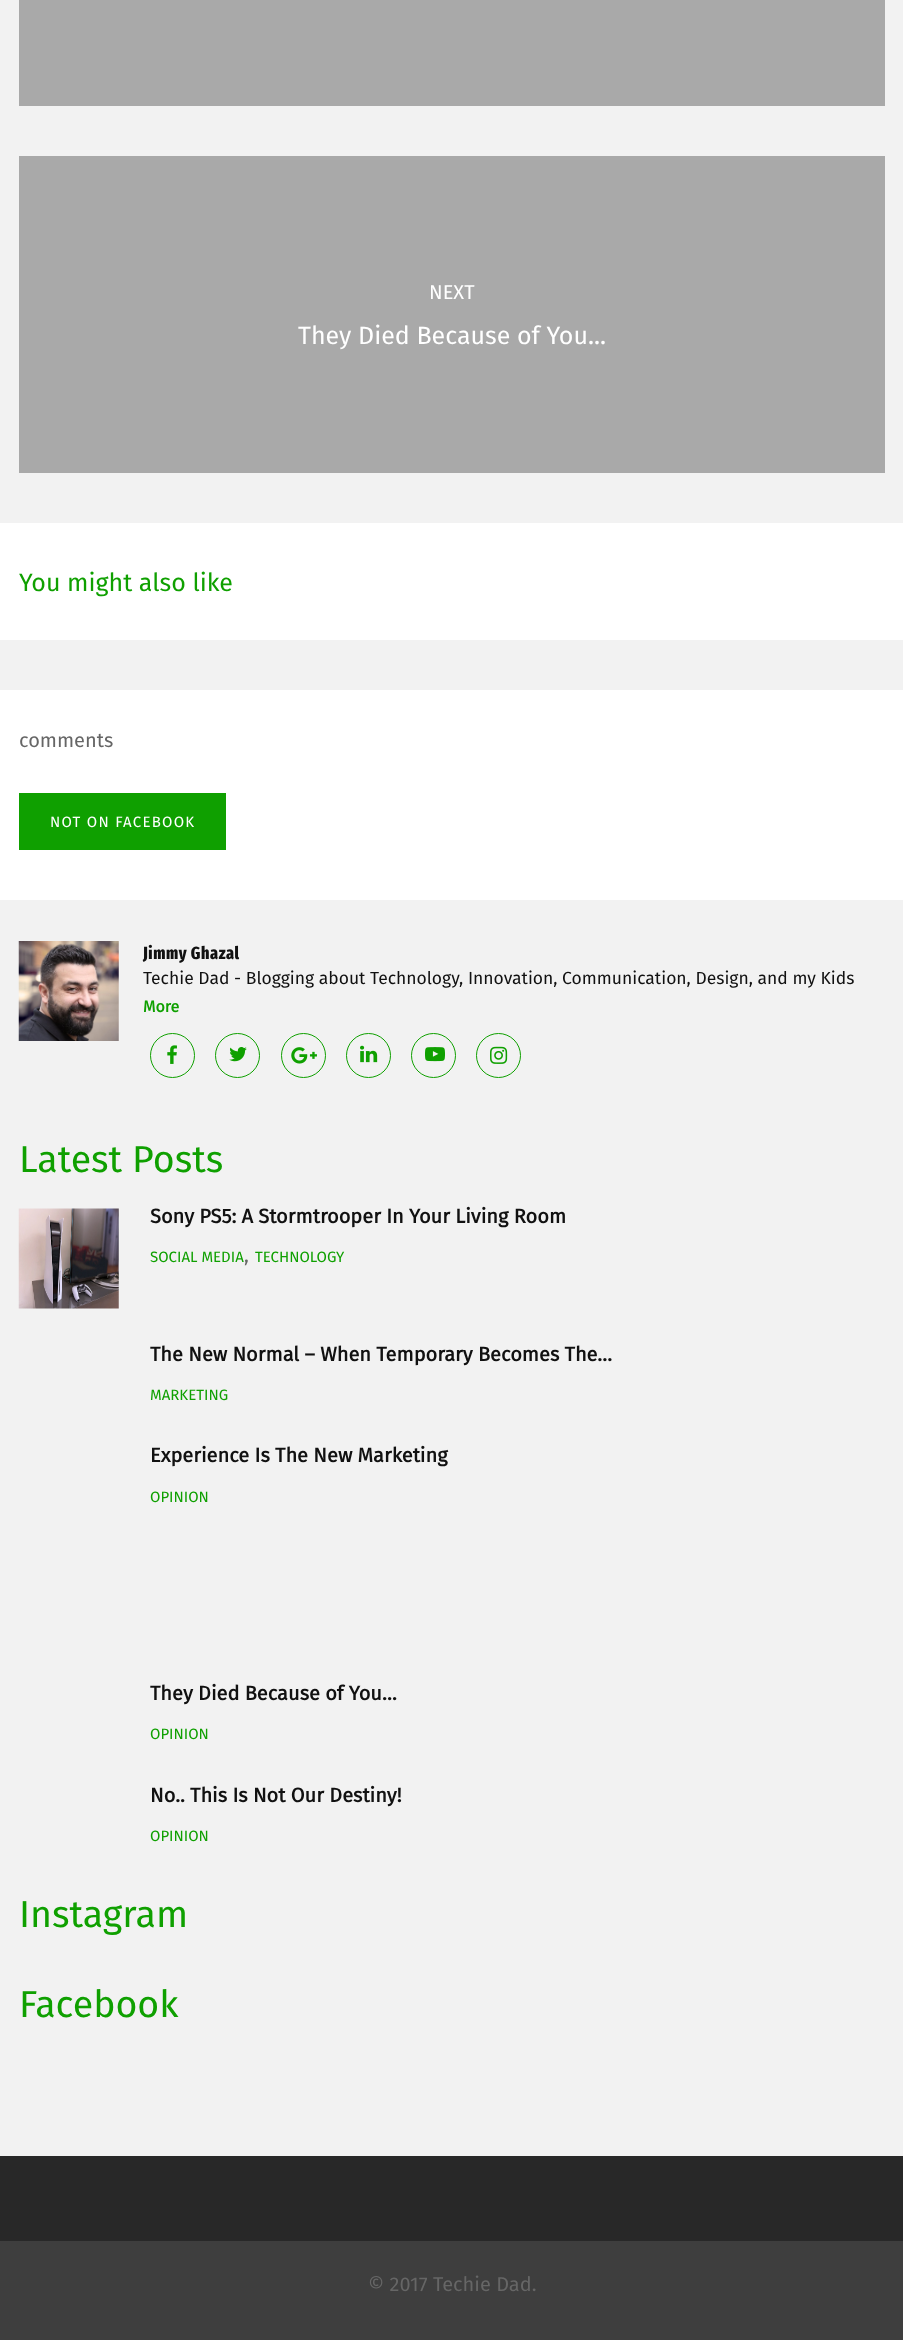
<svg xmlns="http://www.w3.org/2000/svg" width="903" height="2340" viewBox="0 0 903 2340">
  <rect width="100%" height="100%" fill="#f2f2f2"/>
  <rect x="19" y="0" width="866" height="106" fill="#a9a9a9"/>
  <rect x="19" y="156" width="866" height="317" fill="#a9a9a9"/>
  <text x="429" y="299" font-family="Fira Sans" font-size="20" fill="#ffffff">NEXT</text>
  <text x="298" y="344" font-family="Fira Sans" font-size="25" fill="#ffffff">They Died Because of You...</text>
  <rect x="0" y="523" width="903" height="117" fill="#ffffff"/>
  <text x="19" y="591" font-family="Fira Sans" font-size="25" fill="#0fa000">You might also like</text>
  <rect x="0" y="690" width="903" height="210" fill="#ffffff"/>
  <text x="19" y="747" font-family="Fira Sans" font-size="20" fill="#666666">comments</text>
  <rect x="19" y="793" width="207" height="57" fill="#0fa000"/>
  <text x="50" y="827" font-family="Fira Sans" font-size="15" letter-spacing="1.25" fill="#ffffff">NOT ON FACEBOOK</text>
  <image x="18" y="941" width="101" height="100" href="img1.png"/>
  <text x="143" y="959" font-family="Fira Sans Extra Condensed" font-size="17.5" font-weight="800" letter-spacing="0.6" fill="#111111">Jimmy Ghazal</text>
  <text x="143" y="984" font-family="Fira Sans" font-size="17.5" fill="#111111">Techie Dad - Blogging about Technology, Innovation, Communication, Design, and my Kids</text>
  <text x="143" y="1012" font-family="Fira Sans" font-size="16" font-weight="bold" fill="#0fa000">More</text>
  <circle cx="172.5" cy="1055.5" r="22" fill="none" stroke="#0fa000"/>
  <image x="167" y="1045" width="10" height="19" href="img2.png"/>
  <circle cx="237.5" cy="1055.5" r="22" fill="none" stroke="#0fa000"/>
  <image x="229" y="1047" width="18" height="15" href="img3.png"/>
  <circle cx="303.5" cy="1055.5" r="22" fill="none" stroke="#0fa000"/>
  <image x="291" y="1047" width="26" height="17" href="img4.png"/>
  <circle cx="368.5" cy="1055.5" r="22" fill="none" stroke="#0fa000"/>
  <image x="360" y="1045" width="18" height="18" href="img5.png"/>
  <circle cx="433.5" cy="1055.5" r="22" fill="none" stroke="#0fa000"/>
  <image x="425" y="1047" width="20" height="15" href="img6.png"/>
  <circle cx="498.5" cy="1055.5" r="22" fill="none" stroke="#0fa000"/>
  <image x="490" y="1046" width="18" height="18" href="img7.png"/>
  <text x="19" y="1172" font-family="Fira Sans" font-size="37.5" fill="#0fa000">Latest Posts</text>
  <image x="18" y="1208" width="101" height="101" href="img8.png"/>
  <text x="150" y="1223" font-family="Fira Sans" font-size="20" font-weight="bold" fill="#111111">Sony PS5: A Stormtrooper In Your Living Room</text>
  <text x="150" y="1262" font-family="Fira Sans" font-size="15" fill="#0fa000">SOCIAL MEDIA</text>
  <text x="244" y="1262" font-family="Fira Sans" font-size="20" fill="#666666">,</text>
  <text x="255" y="1262" font-family="Fira Sans" font-size="15" fill="#0fa000">TECHNOLOGY</text>
  <text x="150" y="1361" font-family="Fira Sans" font-size="20" font-weight="bold" fill="#111111">The New Normal – When Temporary Becomes The…</text>
  <text x="150" y="1400" font-family="Fira Sans" font-size="15" fill="#0fa000">MARKETING</text>
  <text x="150" y="1462" font-family="Fira Sans" font-size="20" font-weight="bold" fill="#111111">Experience Is The New Marketing</text>
  <text x="150" y="1502" font-family="Fira Sans" font-size="15" fill="#0fa000">OPINION</text>
  <text x="150" y="1700" font-family="Fira Sans" font-size="20" font-weight="bold" fill="#111111">They Died Because of You…</text>
  <text x="150" y="1739" font-family="Fira Sans" font-size="15" fill="#0fa000">OPINION</text>
  <text x="150" y="1802" font-family="Fira Sans" font-size="20" font-weight="bold" fill="#111111">No.. This Is Not Our Destiny!</text>
  <text x="150" y="1841" font-family="Fira Sans" font-size="15" fill="#0fa000">OPINION</text>
  <text x="19" y="1927" font-family="Fira Sans" font-size="37.5" fill="#0fa000">Instagram</text>
  <text x="19" y="2017" font-family="Fira Sans" font-size="37.5" fill="#0fa000">Facebook</text>
  <rect x="0" y="2156" width="903" height="85" fill="#282828"/>
  <rect x="0" y="2241" width="903" height="99" fill="#3e3e3e"/>
  <text x="368" y="2291" font-family="Fira Sans" font-size="20" fill="#666666">© 2017 Techie Dad.</text>
</svg>
